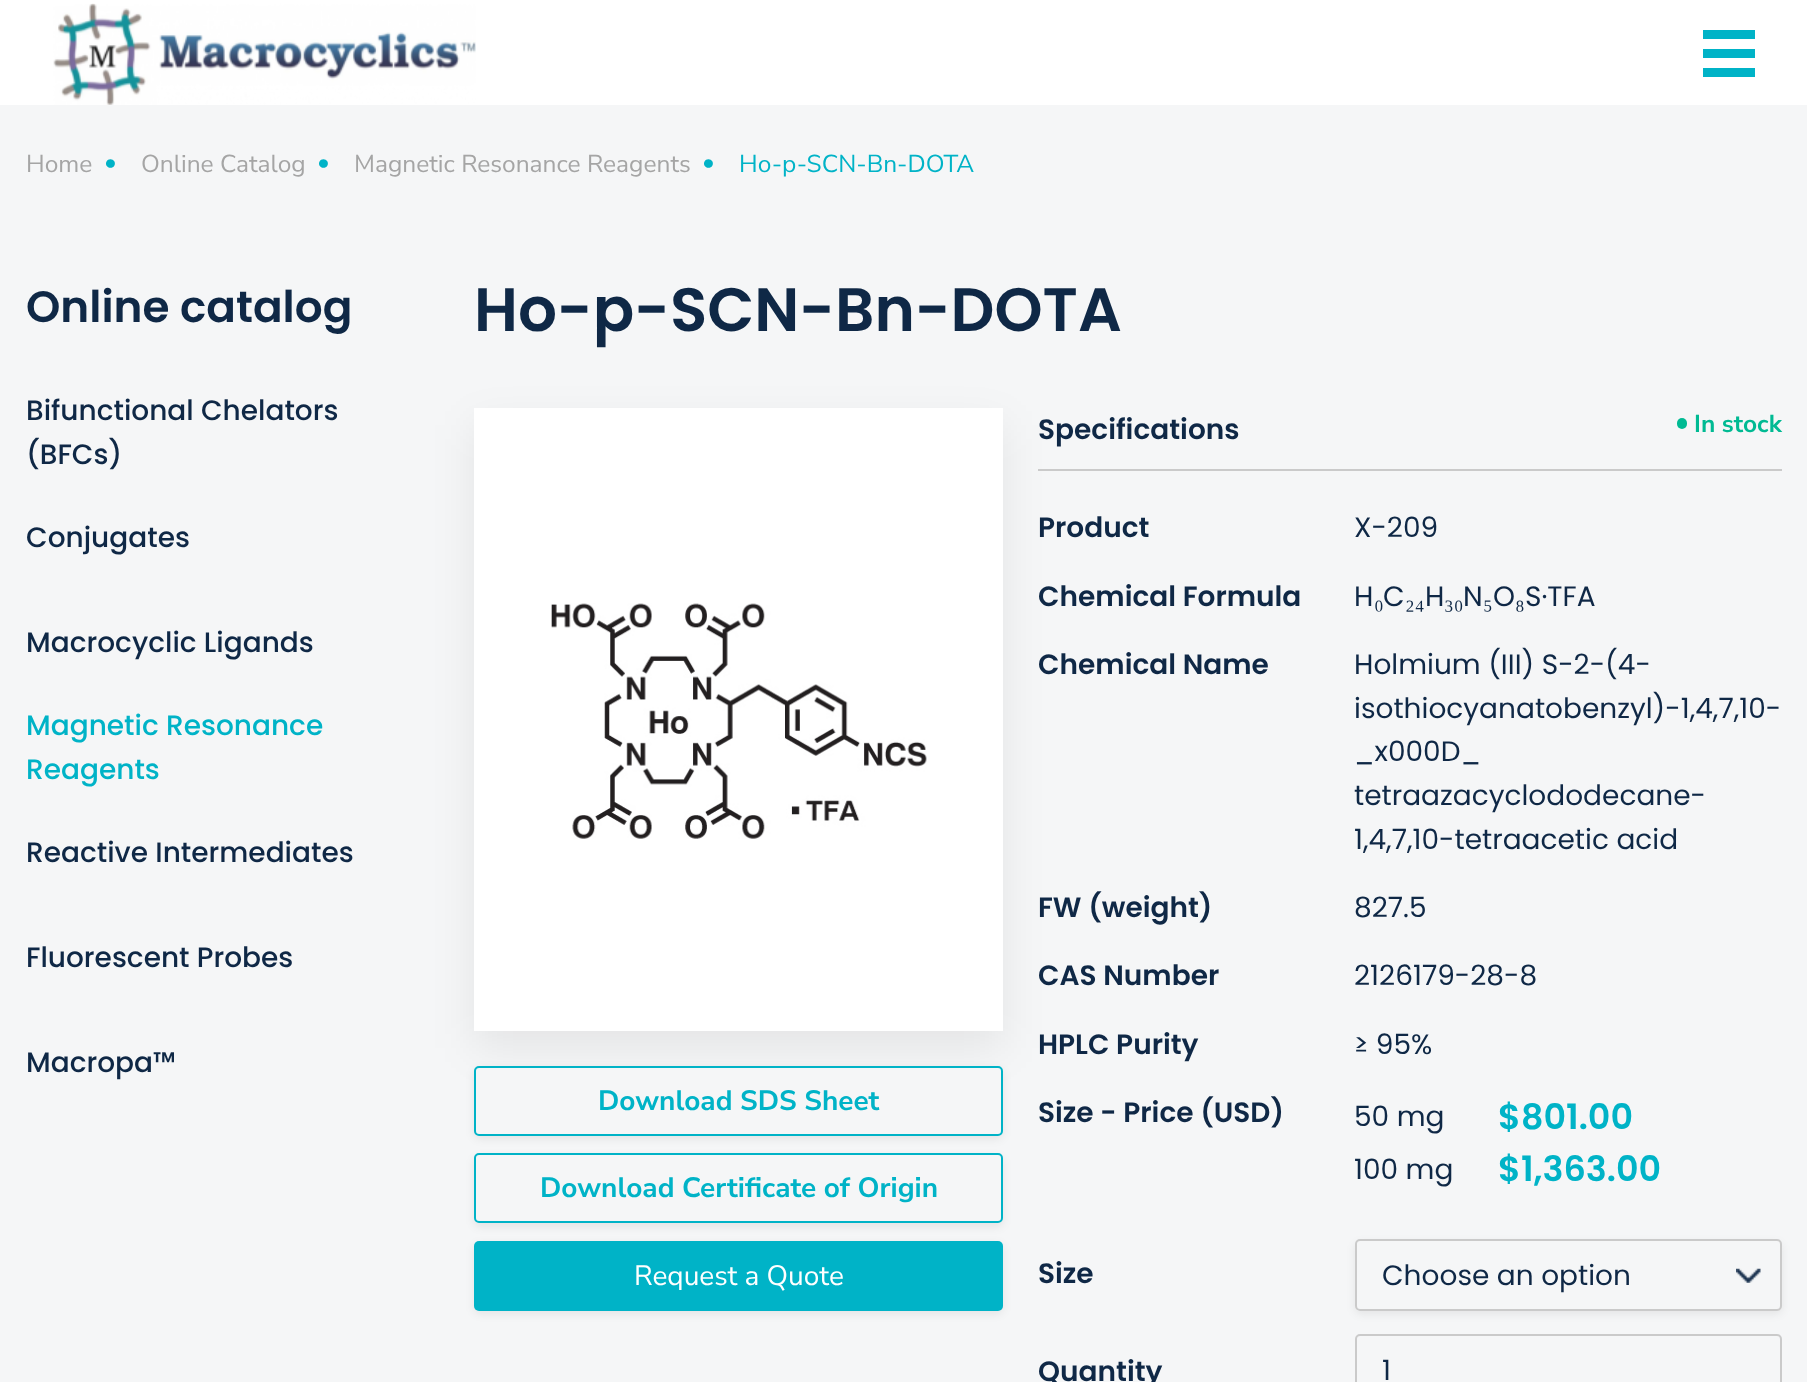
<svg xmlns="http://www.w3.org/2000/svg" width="1807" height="1382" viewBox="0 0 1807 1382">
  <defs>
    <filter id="blur1" x="-50%" y="-200%" width="200%" height="500%"><feGaussianBlur stdDeviation="22"/></filter>
    <filter id="blur2" x="-50%" y="-200%" width="200%" height="500%"><feGaussianBlur stdDeviation="4.5"/></filter>
    <clipPath id="clip1"><path d="M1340 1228H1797V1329H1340ZM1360 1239H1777C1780 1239 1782 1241 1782 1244V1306C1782 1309 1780 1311 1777 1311H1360C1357 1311 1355 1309 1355 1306V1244C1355 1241 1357 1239 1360 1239Z" clip-rule="evenodd"/></clipPath>
  </defs>
  <rect width="100%" height="100%" fill="#ffffff"/>
  <image x="53" y="3" width="423" height="102" href="img1.png"/>
  <rect x="1703" y="30" width="52" height="9" fill="#00b3c7"/>
  <rect x="1703" y="49" width="52" height="9" fill="#00b3c7"/>
  <rect x="1703" y="68" width="52" height="9" fill="#00b3c7"/>
  <rect x="0" y="105" width="1807" height="1277" fill="#f5f6f7"/>
  <text x="26" y="172" font-family="Nunito Sans" font-size="24.5" fill="#a5a5a5">Home</text>
  <text x="104" y="170" font-family="Nunito Sans" font-size="24.5" fill="#00b3c7">•</text>
  <text x="141" y="172" font-family="Nunito Sans" font-size="24.5" fill="#a5a5a5">Online Catalog</text>
  <text x="317" y="170" font-family="Nunito Sans" font-size="24.5" fill="#00b3c7">•</text>
  <text x="354" y="172" font-family="Nunito Sans" font-size="24.5" fill="#a5a5a5">Magnetic Resonance Reagents</text>
  <text x="702" y="170" font-family="Nunito Sans" font-size="24.5" fill="#00b3c7">•</text>
  <text x="739" y="172" font-family="Nunito Sans" font-size="24.5" fill="#00b3c7">Ho-p-SCN-Bn-DOTA</text>
  <text x="26" y="322" font-family="Poppins" font-size="43.75" font-weight="600" fill="#0f2846">Online catalog</text>
  <text x="26" y="420" font-family="Poppins" font-size="28" font-weight="500" fill="#0f2846">Bifunctional Chelators</text>
  <text x="26" y="464" font-family="Poppins" font-size="28" font-weight="500" fill="#0f2846">(BFCs)</text>
  <text x="26" y="547" font-family="Poppins" font-size="28" font-weight="500" fill="#0f2846">Conjugates</text>
  <text x="26" y="652" font-family="Poppins" font-size="28" font-weight="500" fill="#0f2846">Macrocyclic Ligands</text>
  <text x="26" y="735" font-family="Poppins" font-size="28" font-weight="500" fill="#00b3c7">Magnetic Resonance</text>
  <text x="26" y="779" font-family="Poppins" font-size="28" font-weight="500" fill="#00b3c7">Reagents</text>
  <text x="26" y="862" font-family="Poppins" font-size="28" font-weight="500" fill="#0f2846">Reactive Intermediates</text>
  <text x="26" y="967" font-family="Poppins" font-size="28" font-weight="500" fill="#0f2846">Fluorescent Probes</text>
  <text x="26" y="1072" font-family="Poppins" font-size="28" font-weight="500" fill="#0f2846">Macropa™</text>
  <text x="474" y="331" font-family="Poppins" font-size="61.25" font-weight="600" fill="#0f2846">Ho-p-SCN-Bn-DOTA</text>
  <rect x="474" y="425" width="529" height="623" fill="#000000" fill-opacity="0.07" filter="url(#blur1)"/>
  <rect x="474" y="408" width="529" height="623" fill="#ffffff"/>
  <image x="551" y="603" width="376" height="236" href="img2.png"/>
  <rect x="474" y="1069" width="529" height="70" rx="5" fill="#000000" fill-opacity="0.07" filter="url(#blur2)"/>
  <rect x="475" y="1067" width="527" height="68" rx="4" fill="#f5f6f7" stroke="#00b3c7" stroke-width="2"/>
  <text x="598" y="1110" font-family="Nunito Sans" font-size="28" font-weight="bold" fill="#00b3c7">Download SDS Sheet</text>
  <rect x="474" y="1157" width="529" height="70" rx="5" fill="#000000" fill-opacity="0.07" filter="url(#blur2)"/>
  <rect x="475" y="1154" width="527" height="68" rx="4" fill="#f5f6f7" stroke="#00b3c7" stroke-width="2"/>
  <text x="540" y="1197" font-family="Nunito Sans" font-size="28" font-weight="bold" fill="#00b3c7">Download Certificate of Origin</text>
  <rect x="474" y="1244" width="529" height="70" rx="5" fill="#000000" fill-opacity="0.07" filter="url(#blur2)"/>
  <rect x="474" y="1241" width="529" height="70" rx="5" fill="#00b3c7"/>
  <text x="634" y="1285" font-family="Nunito Sans" font-size="28" fill="#ffffff">Request a Quote</text>
  <text x="1038" y="439" font-family="Poppins" font-size="28" font-weight="600" fill="#0f2846">Specifications</text>
  <rect x="1038" y="469" width="744" height="2" fill="#cacaca"/>
  <rect x="1677" y="418" width="10" height="11" rx="5" fill="#00ba93"/>
  <text x="1694" y="432" font-family="Nunito Sans" font-size="24.5" font-weight="bold" fill="#00ba93">In stock</text>
  <text x="1038" y="537" font-family="Poppins" font-size="28" font-weight="600" fill="#0f2846">Product</text>
  <text x="1354" y="537" font-family="Poppins" font-size="28" fill="#0f2846">X-209</text>
  <text x="1038" y="606" font-family="Poppins" font-size="28" font-weight="600" fill="#0f2846">Chemical Formula</text>
  <text x="1354" y="606" font-family="Poppins" font-size="28" fill="#0f2846">H</text>
  <text x="1374" y="606" font-family="Liberation Serif" font-size="28" fill="#0f2846">₀</text>
  <text x="1383" y="606" font-family="Poppins" font-size="28" fill="#0f2846">C</text>
  <text x="1405" y="606" font-family="Liberation Serif" font-size="28" fill="#0f2846">₂₄</text>
  <text x="1425" y="606" font-family="Poppins" font-size="28" fill="#0f2846">H</text>
  <text x="1444" y="606" font-family="Liberation Serif" font-size="28" fill="#0f2846">₃₀</text>
  <text x="1463" y="606" font-family="Poppins" font-size="28" fill="#0f2846">N</text>
  <text x="1483" y="606" font-family="Liberation Serif" font-size="28" fill="#0f2846">₅</text>
  <text x="1493" y="606" font-family="Poppins" font-size="28" fill="#0f2846">O</text>
  <text x="1515" y="606" font-family="Liberation Serif" font-size="28" fill="#0f2846">₈</text>
  <text x="1525" y="606" font-family="Poppins" font-size="28" fill="#0f2846">S·TFA</text>
  <text x="1038" y="674" font-family="Poppins" font-size="28" font-weight="600" fill="#0f2846">Chemical Name</text>
  <text x="1354" y="674" font-family="Poppins" font-size="28" fill="#0f2846">Holmium (III) S-2-(4-</text>
  <text x="1354" y="718" font-family="Poppins" font-size="28" fill="#0f2846">isothiocyanatobenzyl)-1,4,7,10-</text>
  <text x="1354" y="761" font-family="Poppins" font-size="28" fill="#0f2846">_x000D_</text>
  <text x="1354" y="805" font-family="Poppins" font-size="28" fill="#0f2846">tetraazacyclododecane-</text>
  <text x="1354" y="849" font-family="Poppins" font-size="28" fill="#0f2846">1,4,7,10-tetraacetic acid</text>
  <text x="1038" y="917" font-family="Poppins" font-size="28" font-weight="600" fill="#0f2846">FW (weight)</text>
  <text x="1354" y="917" font-family="Poppins" font-size="28" fill="#0f2846">827.5</text>
  <text x="1038" y="985" font-family="Poppins" font-size="28" font-weight="600" fill="#0f2846">CAS Number</text>
  <text x="1354" y="985" font-family="Poppins" font-size="28" fill="#0f2846">2126179-28-8</text>
  <text x="1038" y="1054" font-family="Poppins" font-size="28" font-weight="600" fill="#0f2846">HPLC Purity</text>
  <text x="1354" y="1054" font-family="Poppins" font-size="28" fill="#0f2846">≥ 95%</text>
  <text x="1038" y="1122" font-family="Poppins" font-size="28" font-weight="600" fill="#0f2846">Size - Price (USD)</text>
  <text x="1354" y="1126" font-family="Poppins" font-size="28" fill="#0f2846">50 mg</text>
  <text x="1498" y="1129" font-family="Poppins" font-size="35" font-weight="600" fill="#00b3c7">$801.00</text>
  <text x="1354" y="1179" font-family="Poppins" font-size="28" fill="#0f2846">100 mg</text>
  <text x="1498" y="1181" font-family="Poppins" font-size="35" font-weight="600" fill="#00b3c7">$1,363.00</text>
  <text x="1038" y="1283" font-family="Poppins" font-size="28" font-weight="600" fill="#0f2846">Size</text>
  <text x="1038" y="1381" font-family="Poppins" font-size="28" font-weight="600" fill="#0f2846">Quantity</text>
  <g clip-path="url(#clip1)">
    <rect x="1355" y="1243" width="427" height="71" rx="5" fill="#000000" fill-opacity="0.07" filter="url(#blur2)"/>
  </g>
  <image x="1736" y="1268" width="25" height="15" href="img3.png"/>
  <rect x="1356" y="1240" width="425" height="70" rx="4" fill="none" stroke="#cacaca" stroke-width="2"/>
  <text x="1382" y="1285" font-family="Poppins" font-size="28" fill="#0f2846">Choose an option</text>
  <rect x="1356" y="1335" width="425" height="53" rx="4" fill="none" stroke="#cacaca" stroke-width="2"/>
  <text x="1382" y="1380" font-family="Poppins" font-size="28" fill="#0f2846">1</text>
</svg>
